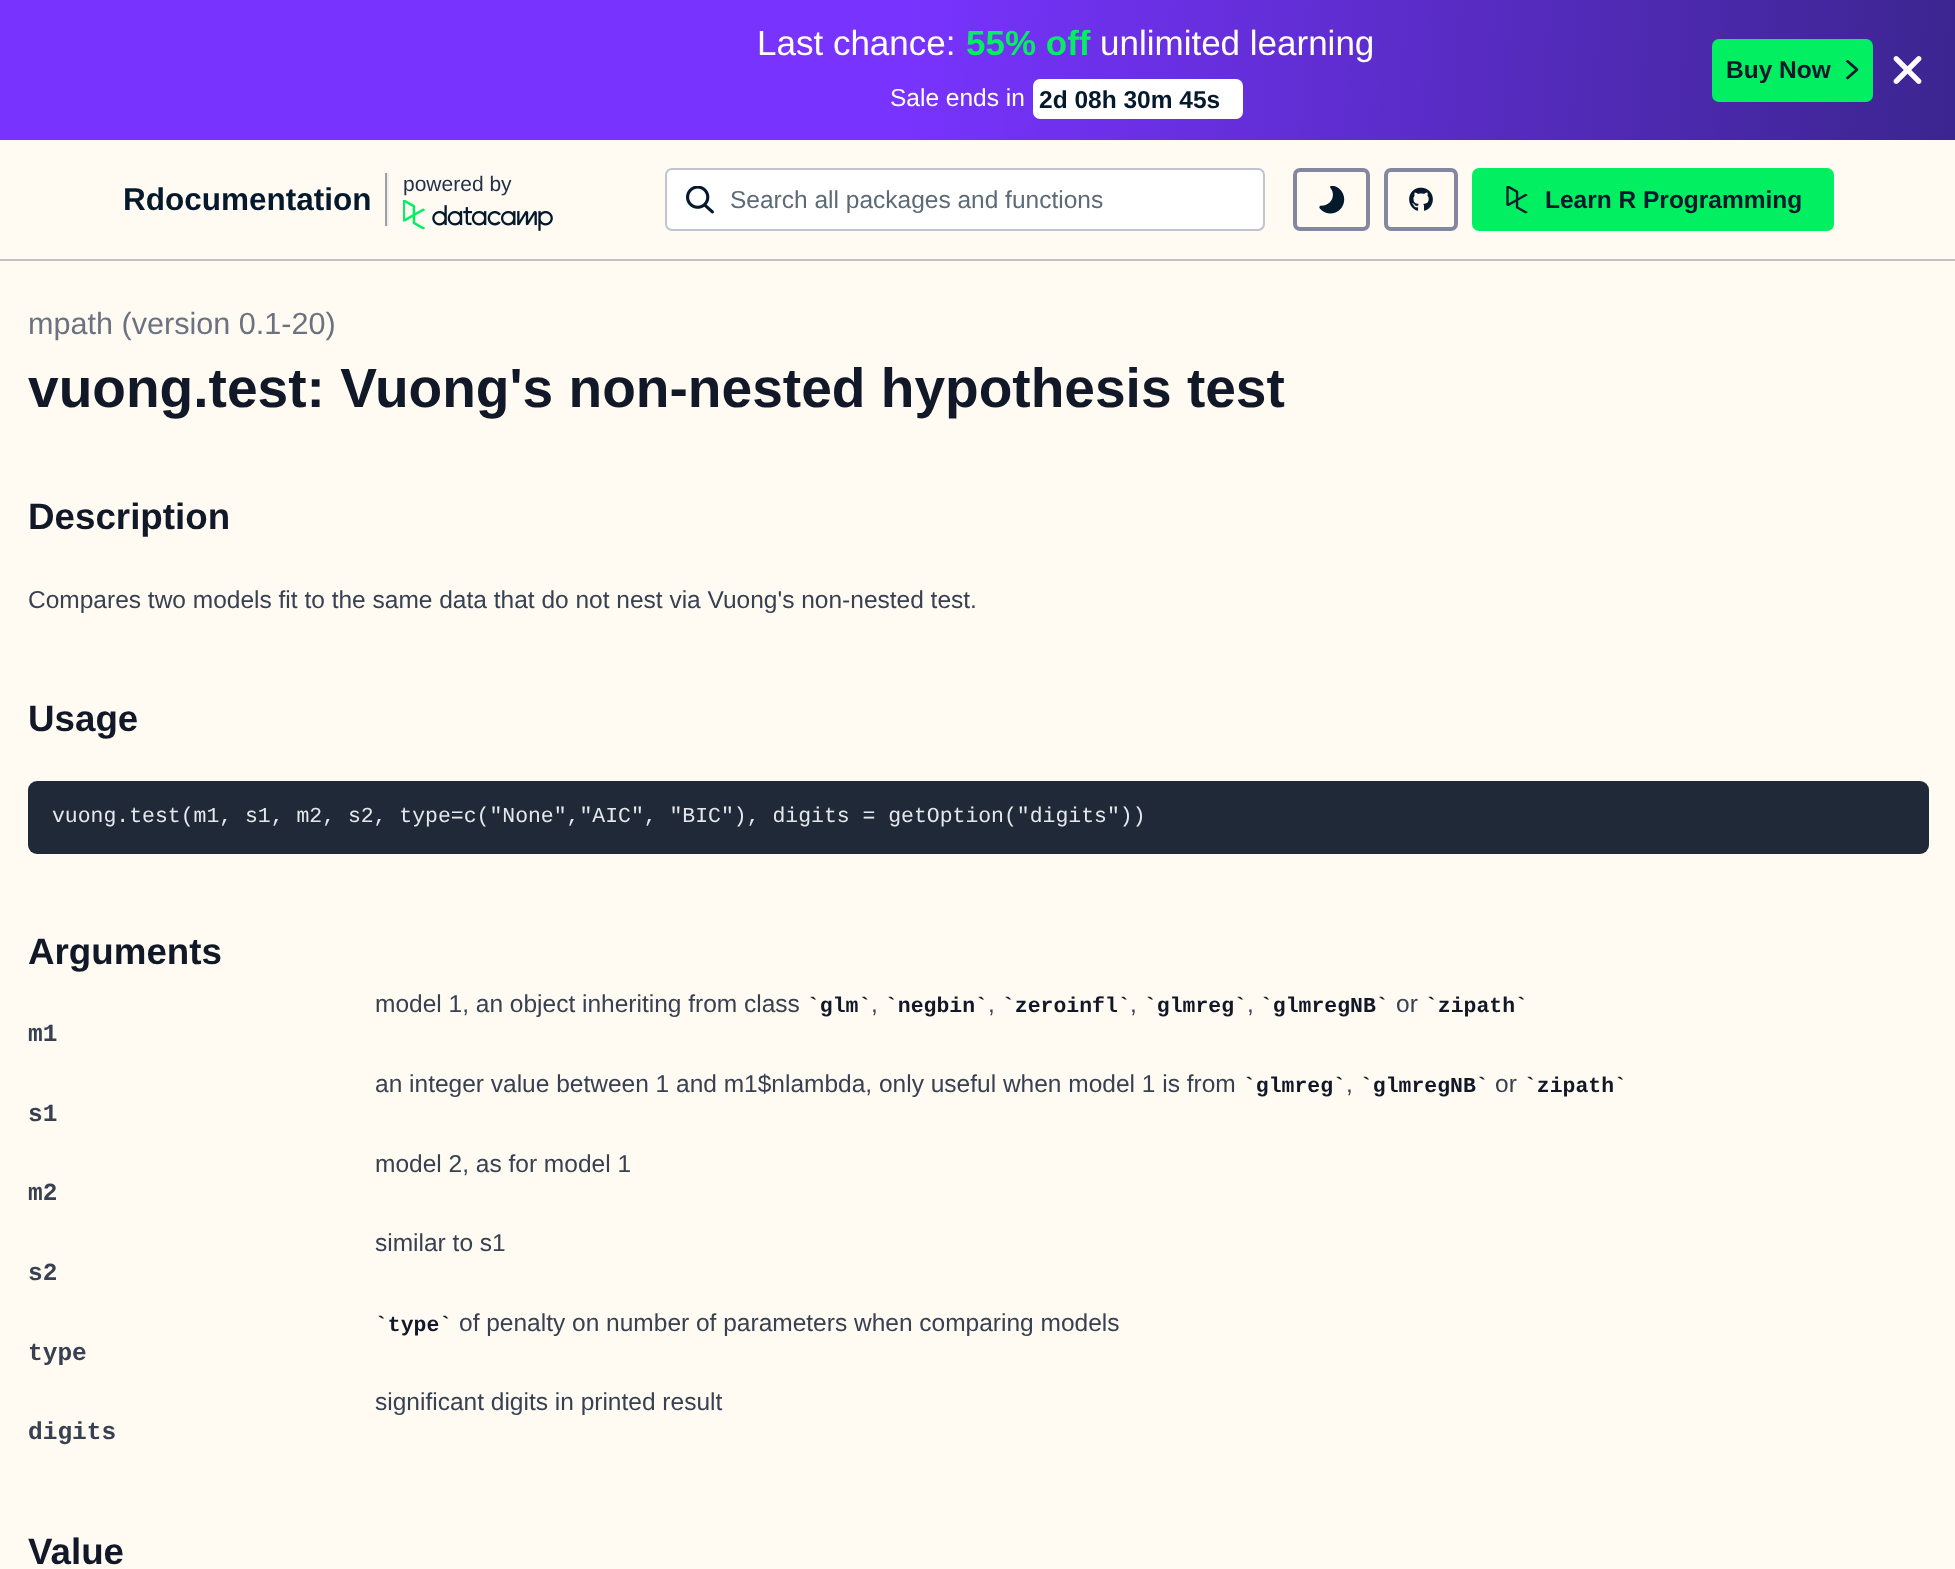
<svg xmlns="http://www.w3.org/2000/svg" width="1955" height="1569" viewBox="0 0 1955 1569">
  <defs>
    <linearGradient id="g1" gradientUnits="userSpaceOnUse" x1="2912" y1="-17" x2="911" y2="-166"><stop offset="0" stop-color="#05192d"/><stop offset="1" stop-color="#7933ff"/></linearGradient>
  </defs>
  <rect width="100%" height="100%" fill="#fffbf3"/>
  <rect x="0" y="0" width="1955" height="140" fill="url(#g1)"/>
  <text x="757" y="55" font-family="Liberation Sans" font-size="35" fill="#ffffff">Last chance:</text>
  <text x="966" y="55" font-family="Liberation Sans" font-size="35" font-weight="bold" fill="#03ef62">55% off</text>
  <text x="1100" y="55" font-family="Liberation Sans" font-size="35" fill="#ffffff">unlimited learning</text>
  <text x="890" y="106" font-family="Liberation Sans" font-size="24.5" fill="#ffffff">Sale ends in</text>
  <rect x="1033" y="79" width="210" height="40" rx="7" fill="#ffffff"/>
  <text x="1039" y="108" font-family="Liberation Sans" font-size="24.5" font-weight="bold" fill="#05192d">2d 08h 30m 45s</text>
  <rect x="1712" y="39" width="161" height="63" rx="7" fill="#03ef62"/>
  <text x="1726" y="78" font-family="Liberation Sans" font-size="24.5" font-weight="bold" fill="#05192d">Buy Now</text>
  <image x="1845" y="60" width="14" height="20" href="img1.png"/>
  <image x="1893" y="56" width="29" height="28" href="img2.png"/>
  <text x="123" y="210" font-family="Liberation Sans" font-size="31.5" font-weight="bold" fill="#05192d">Rdocumentation</text>
  <rect x="387" y="173" width="2" height="53" fill="#eeeeee"/>
  <rect x="385" y="224" width="4" height="2" fill="#eeeeee"/>
  <rect x="385" y="173" width="2" height="53" fill="#9f9f9f"/>
  <text x="403" y="191" font-family="Liberation Sans" font-size="21" fill="#213147">powered by</text>
  <image x="403" y="200" width="150" height="31" href="img3.png"/>
  <rect x="665" y="168" width="600" height="63" rx="7" fill="#ffffff"/>
  <rect x="666" y="169" width="598" height="61" rx="6" fill="none" stroke="#303969" stroke-opacity="0.3" stroke-width="2"/>
  <image x="686" y="186" width="28" height="28" href="img4.png"/>
  <text x="730" y="208" font-family="Liberation Sans" font-size="24.5" fill="#5d6a77">Search all packages and functions</text>
  <rect x="1295" y="170" width="73" height="59" rx="5" fill="none" stroke="#8387a0" stroke-width="4"/>
  <image x="1319" y="186" width="26" height="28" href="img5.png"/>
  <rect x="1386" y="170" width="70" height="59" rx="5" fill="none" stroke="#8387a0" stroke-width="4"/>
  <image x="1409" y="187" width="24" height="24" href="img6.png"/>
  <rect x="1472" y="168" width="362" height="63" rx="7" fill="#03ef62"/>
  <image x="1506" y="186" width="22" height="28" href="img7.png"/>
  <text x="1545" y="208" font-family="Liberation Sans" font-size="24.5" font-weight="bold" fill="#05192d">Learn R Programming</text>
  <rect x="0" y="259" width="1955" height="2" fill="#c1c1ca"/>
  <text x="28" y="334" font-family="Liberation Sans" font-size="30.6" fill="#6b7280">mpath (version 0.1-20)</text>
  <text x="28" y="407" font-family="Liberation Sans" font-size="55.1" font-weight="bold" fill="#111827">vuong.test: Vuong's non-nested hypothesis test</text>
  <text x="28" y="529" font-family="Liberation Sans" font-size="36.75" font-weight="bold" fill="#111827">Description</text>
  <text x="28" y="608" font-family="Liberation Sans" font-size="24.5" fill="#374151">Compares two models fit to the same data that do not nest via Vuong's non-nested test.</text>
  <text x="28" y="731" font-family="Liberation Sans" font-size="36.75" font-weight="bold" fill="#111827">Usage</text>
  <rect x="28" y="781" width="1901" height="73" rx="9" fill="#1f2937"/>
  <text x="52" y="822" font-family="Liberation Mono" font-size="21.45" fill="#e5e7eb">vuong.test(m1, s1, m2, s2, type=c("None","AIC", "BIC"), digits = getOption("digits"))</text>
  <text x="28" y="964" font-family="Liberation Sans" font-size="36.75" font-weight="bold" fill="#111827">Arguments</text>
  <text x="375" y="1012" font-family="Liberation Sans" font-size="24.5" fill="#374151">model 1, an object inheriting from class</text>
  <text x="807" y="1012" font-family="Liberation Mono" font-size="21.45" font-weight="bold" fill="#111827">`glm`</text>
  <text x="871" y="1012" font-family="Liberation Sans" font-size="24.5" fill="#374151">,</text>
  <text x="885" y="1012" font-family="Liberation Mono" font-size="21.45" font-weight="bold" fill="#111827">`negbin`</text>
  <text x="988" y="1012" font-family="Liberation Sans" font-size="24.5" fill="#374151">,</text>
  <text x="1002" y="1012" font-family="Liberation Mono" font-size="21.45" font-weight="bold" fill="#111827">`zeroinfl`</text>
  <text x="1130" y="1012" font-family="Liberation Sans" font-size="24.5" fill="#374151">,</text>
  <text x="1144" y="1012" font-family="Liberation Mono" font-size="21.45" font-weight="bold" fill="#111827">`glmreg`</text>
  <text x="1247" y="1012" font-family="Liberation Sans" font-size="24.5" fill="#374151">,</text>
  <text x="1260" y="1012" font-family="Liberation Mono" font-size="21.45" font-weight="bold" fill="#111827">`glmregNB`</text>
  <text x="1396" y="1012" font-family="Liberation Sans" font-size="24.5" fill="#374151">or</text>
  <text x="1425" y="1012" font-family="Liberation Mono" font-size="21.45" font-weight="bold" fill="#111827">`zipath`</text>
  <text x="28" y="1041" font-family="Liberation Mono" font-size="24.5" font-weight="bold" fill="#374151">m1</text>
  <text x="375" y="1092" font-family="Liberation Sans" font-size="24.5" fill="#374151">an integer value between 1 and m1$nlambda, only useful when model 1 is from</text>
  <text x="1243" y="1092" font-family="Liberation Mono" font-size="21.45" font-weight="bold" fill="#111827">`glmreg`</text>
  <text x="1346" y="1092" font-family="Liberation Sans" font-size="24.5" fill="#374151">,</text>
  <text x="1360" y="1092" font-family="Liberation Mono" font-size="21.45" font-weight="bold" fill="#111827">`glmregNB`</text>
  <text x="1495" y="1092" font-family="Liberation Sans" font-size="24.5" fill="#374151">or</text>
  <text x="1524" y="1092" font-family="Liberation Mono" font-size="21.45" font-weight="bold" fill="#111827">`zipath`</text>
  <text x="28" y="1121" font-family="Liberation Mono" font-size="24.5" font-weight="bold" fill="#374151">s1</text>
  <text x="375" y="1172" font-family="Liberation Sans" font-size="24.5" fill="#374151">model 2, as for model 1</text>
  <text x="28" y="1200" font-family="Liberation Mono" font-size="24.5" font-weight="bold" fill="#374151">m2</text>
  <text x="375" y="1251" font-family="Liberation Sans" font-size="24.5" fill="#374151">similar to s1</text>
  <text x="28" y="1280" font-family="Liberation Mono" font-size="24.5" font-weight="bold" fill="#374151">s2</text>
  <text x="375" y="1331" font-family="Liberation Mono" font-size="21.45" font-weight="bold" fill="#111827">`type`</text>
  <text x="459" y="1331" font-family="Liberation Sans" font-size="24.5" fill="#374151">of penalty on number of parameters when comparing models</text>
  <text x="28" y="1360" font-family="Liberation Mono" font-size="24.5" font-weight="bold" fill="#374151">type</text>
  <text x="375" y="1410" font-family="Liberation Sans" font-size="24.5" fill="#374151">significant digits in printed result</text>
  <text x="28" y="1439" font-family="Liberation Mono" font-size="24.5" font-weight="bold" fill="#374151">digits</text>
  <text x="28" y="1564" font-family="Liberation Sans" font-size="36.75" font-weight="bold" fill="#111827">Value</text>
</svg>
